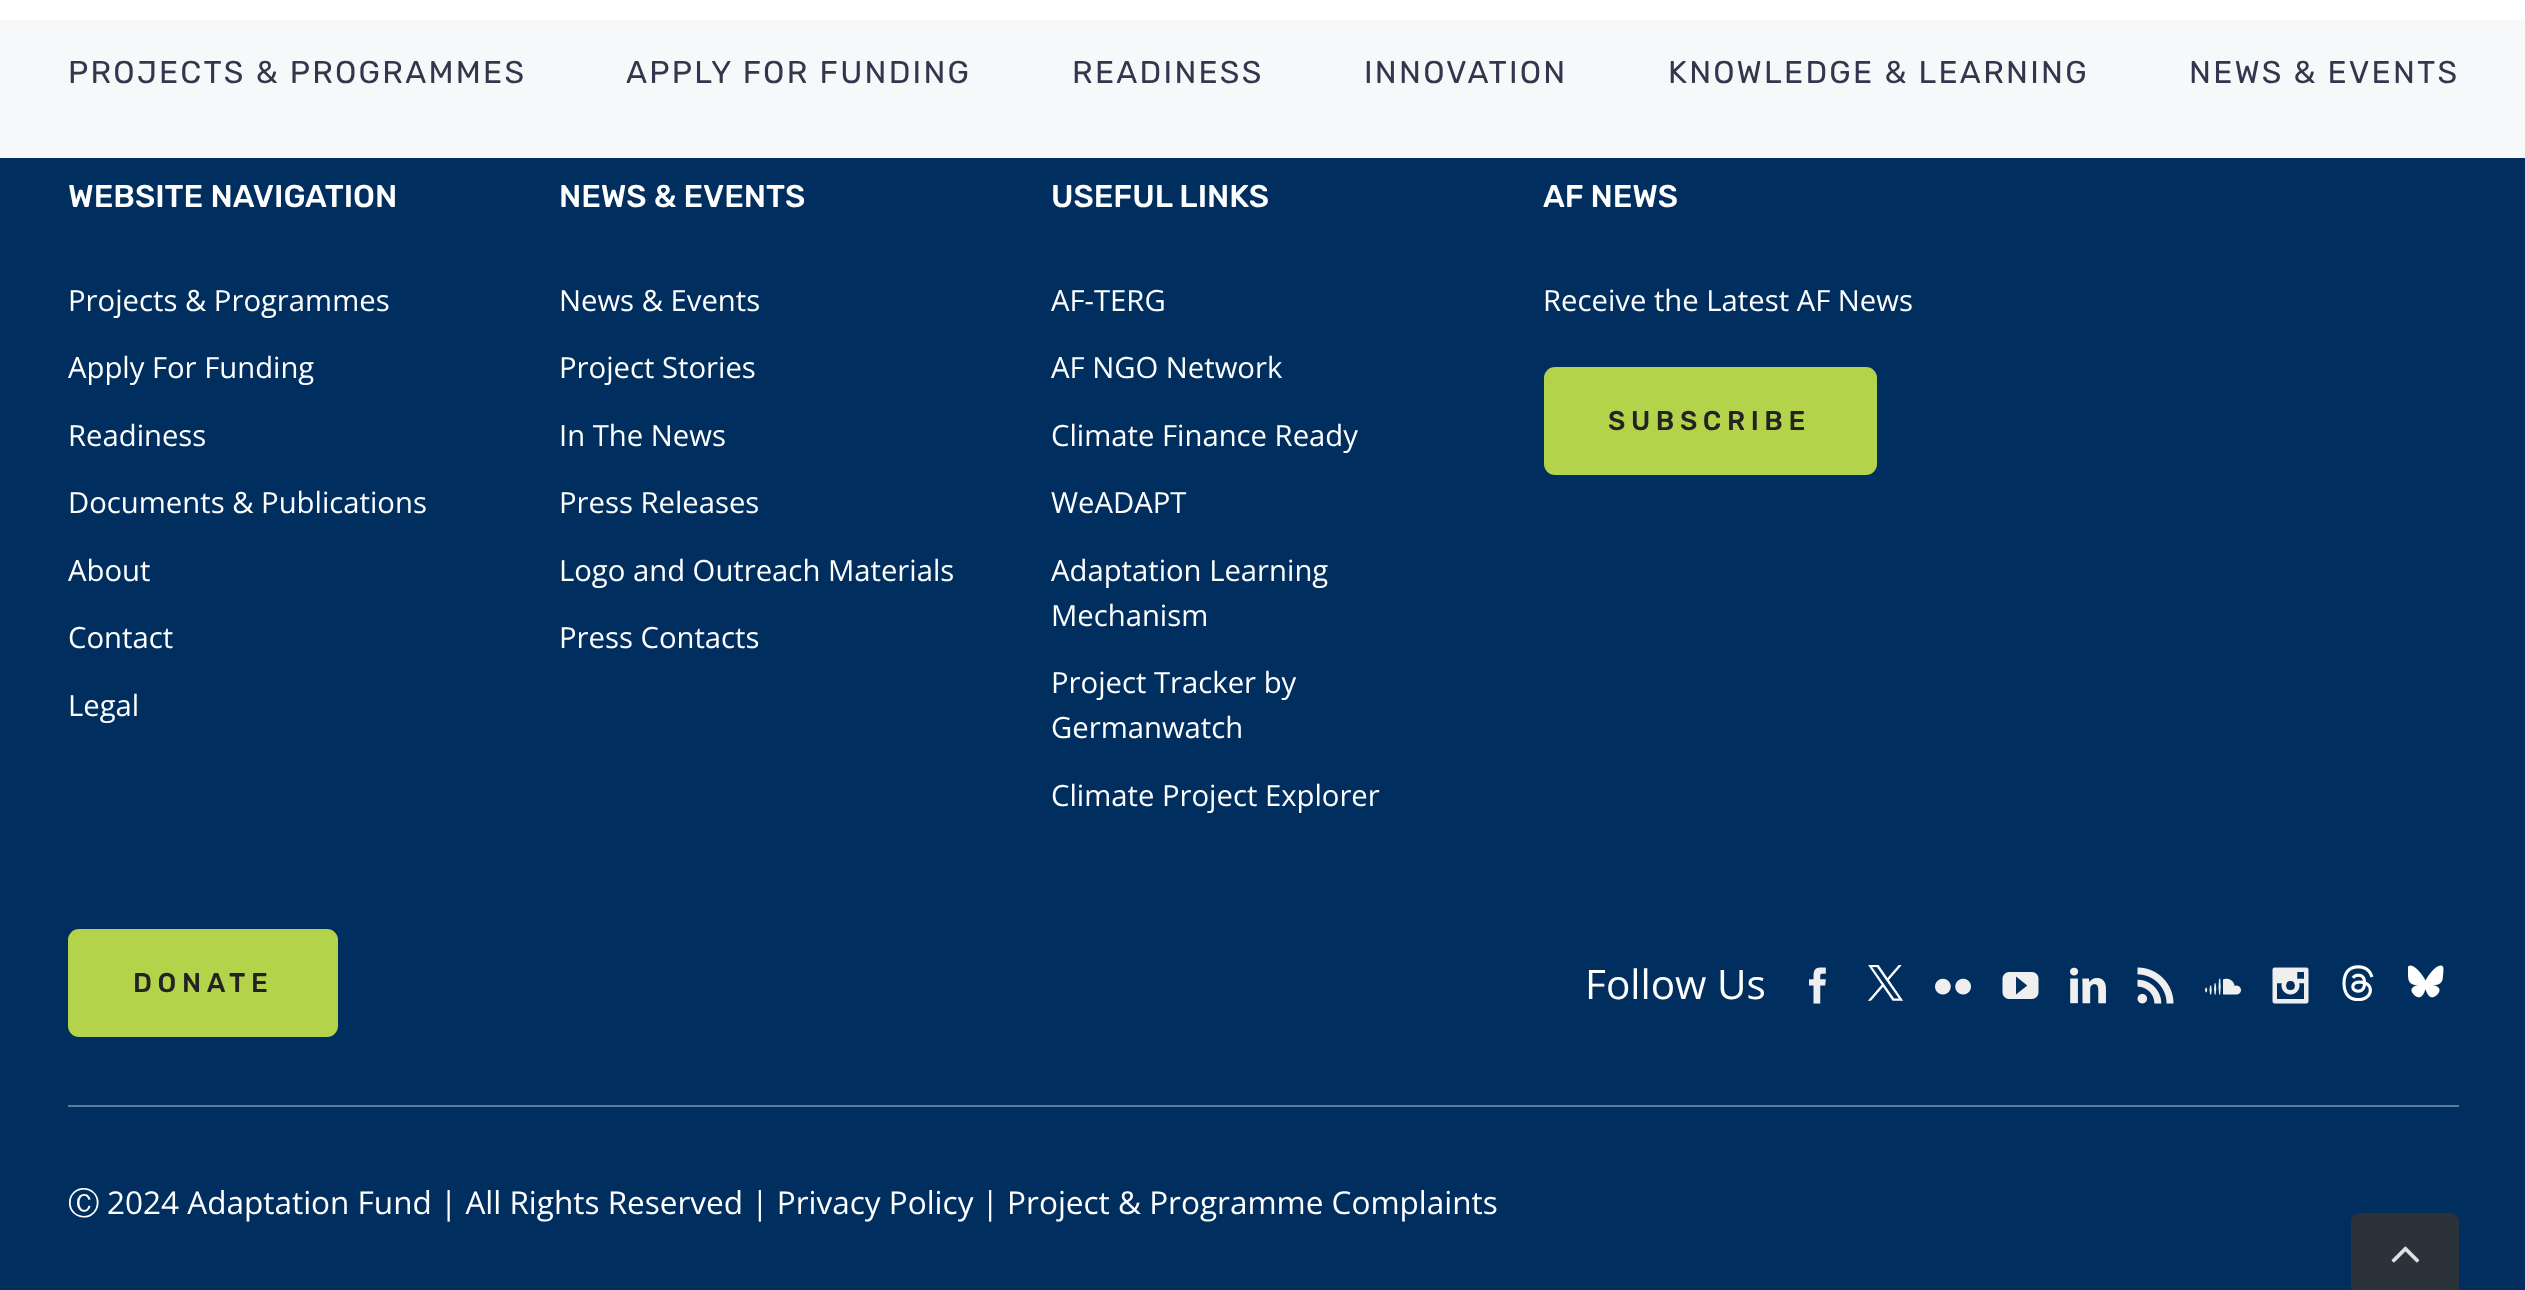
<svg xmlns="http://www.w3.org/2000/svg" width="2525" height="1290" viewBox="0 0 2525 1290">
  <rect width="100%" height="100%" fill="#ffffff"/>
  <rect x="0" y="20" width="2525" height="1270" fill="#002f5f"/>
  <rect x="0" y="20" width="2525" height="138" fill="#ffffff" fill-opacity="0.97"/>
  <text x="68" y="83" font-family="Rubik" font-size="31.5" letter-spacing="2.25" fill="#36354e">PROJECTS &amp; PROGRAMMES</text>
  <text x="626" y="83" font-family="Rubik" font-size="31.5" letter-spacing="2.25" fill="#36354e">APPLY FOR FUNDING</text>
  <text x="1072" y="83" font-family="Rubik" font-size="31.5" letter-spacing="2.25" fill="#36354e">READINESS</text>
  <text x="1364" y="83" font-family="Rubik" font-size="31.5" letter-spacing="2.25" fill="#36354e">INNOVATION</text>
  <text x="1668" y="83" font-family="Rubik" font-size="31.5" letter-spacing="2.25" fill="#36354e">KNOWLEDGE &amp; LEARNING</text>
  <text x="2189" y="83" font-family="Rubik" font-size="31.5" letter-spacing="2.25" fill="#36354e">NEWS &amp; EVENTS</text>
  <text x="68" y="207" font-family="Rubik" font-size="31.5" font-weight="500" fill="#ffffff">WEBSITE NAVIGATION</text>
  <text x="68" y="311" font-family="Open Sans" font-size="29.25" fill="#ffffff">Projects &amp; Programmes</text>
  <text x="68" y="378" font-family="Open Sans" font-size="29.25" fill="#ffffff">Apply For Funding</text>
  <text x="68" y="446" font-family="Open Sans" font-size="29.25" fill="#ffffff">Readiness</text>
  <text x="68" y="513" font-family="Open Sans" font-size="29.25" fill="#ffffff">Documents &amp; Publications</text>
  <text x="68" y="581" font-family="Open Sans" font-size="29.25" fill="#ffffff">About</text>
  <text x="68" y="648" font-family="Open Sans" font-size="29.25" fill="#ffffff">Contact</text>
  <text x="68" y="716" font-family="Open Sans" font-size="29.25" fill="#ffffff">Legal</text>
  <text x="559" y="207" font-family="Rubik" font-size="31.5" font-weight="500" fill="#ffffff">NEWS &amp; EVENTS</text>
  <text x="559" y="311" font-family="Open Sans" font-size="29.25" fill="#ffffff">News &amp; Events</text>
  <text x="559" y="378" font-family="Open Sans" font-size="29.25" fill="#ffffff">Project Stories</text>
  <text x="559" y="446" font-family="Open Sans" font-size="29.25" fill="#ffffff">In The News</text>
  <text x="559" y="513" font-family="Open Sans" font-size="29.25" fill="#ffffff">Press Releases</text>
  <text x="559" y="581" font-family="Open Sans" font-size="29.25" fill="#ffffff">Logo and Outreach Materials</text>
  <text x="559" y="648" font-family="Open Sans" font-size="29.25" fill="#ffffff">Press Contacts</text>
  <text x="1051" y="207" font-family="Rubik" font-size="31.5" font-weight="500" fill="#ffffff">USEFUL LINKS</text>
  <text x="1051" y="311" font-family="Open Sans" font-size="29.25" fill="#ffffff">AF-TERG</text>
  <text x="1051" y="378" font-family="Open Sans" font-size="29.25" fill="#ffffff">AF NGO Network</text>
  <text x="1051" y="446" font-family="Open Sans" font-size="29.25" fill="#ffffff">Climate Finance Ready</text>
  <text x="1051" y="513" font-family="Open Sans" font-size="29.25" fill="#ffffff">WeADAPT</text>
  <text x="1051" y="581" font-family="Open Sans" font-size="29.25" fill="#ffffff">Adaptation Learning</text>
  <text x="1051" y="626" font-family="Open Sans" font-size="29.25" fill="#ffffff">Mechanism</text>
  <text x="1051" y="693" font-family="Open Sans" font-size="29.25" fill="#ffffff">Project Tracker by</text>
  <text x="1051" y="738" font-family="Open Sans" font-size="29.25" fill="#ffffff">Germanwatch</text>
  <text x="1051" y="806" font-family="Open Sans" font-size="29.25" fill="#ffffff">Climate Project Explorer</text>
  <text x="1543" y="207" font-family="Rubik" font-size="31.5" font-weight="500" fill="#ffffff">AF NEWS</text>
  <text x="1543" y="311" font-family="Open Sans" font-size="29.25" fill="#ffffff">Receive the Latest AF News</text>
  <rect x="1545" y="368" width="331" height="106" rx="10" fill="#b2d34a" stroke="#b2d34a" stroke-width="2"/>
  <text x="1608" y="430" font-family="Rubik" font-size="27" font-weight="500" letter-spacing="5.6" fill="#232323">SUBSCRIBE</text>
  <rect x="68" y="1105" width="2391" height="2" fill="#5b7b9c"/>
  <rect x="69" y="930" width="268" height="106" rx="10" fill="#b2d34a" stroke="#b2d34a" stroke-width="2"/>
  <text x="133" y="992" font-family="Rubik" font-size="27" font-weight="500" letter-spacing="5.6" fill="#232323">DONATE</text>
  <text x="1585" y="999" font-family="Open Sans" font-size="40.5" fill="#ffffff">Follow Us</text>
  <image x="1809" y="967" width="17" height="37" href="img1.png"/>
  <image x="1868" y="965" width="36" height="36" href="img2.png"/>
  <image x="1935" y="978" width="36" height="17" href="img3.png"/>
  <image x="2002" y="972" width="37" height="27" href="img4.png"/>
  <image x="2070" y="967" width="36" height="37" href="img5.png"/>
  <image x="2137" y="967" width="37" height="37" href="img6.png"/>
  <image x="2205" y="978" width="36" height="17" href="img7.png"/>
  <image x="2272" y="967" width="37" height="37" href="img8.png"/>
  <image x="2342" y="965" width="32" height="36" href="img9.png"/>
  <image x="2408" y="965" width="36" height="33" href="img10.png"/>
  <text x="68" y="1214" font-family="WenQuanYi Zen Hei" font-size="31.5" font-weight="500" fill="#ffffff">Ⓒ</text>
  <text x="107" y="1214" font-family="Open Sans" font-size="31.5" fill="#ffffff">2024 Adaptation Fund | All Rights Reserved | Privacy Policy | Project &amp; Programme Complaints</text>
  <path d="M2360 1213H2450C2455 1213 2459 1217 2459 1222V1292H2351V1222C2351 1217 2355 1213 2360 1213Z" fill="#2b323a"/>
  <image x="2391" y="1246" width="29" height="17" href="img11.png"/>
</svg>
